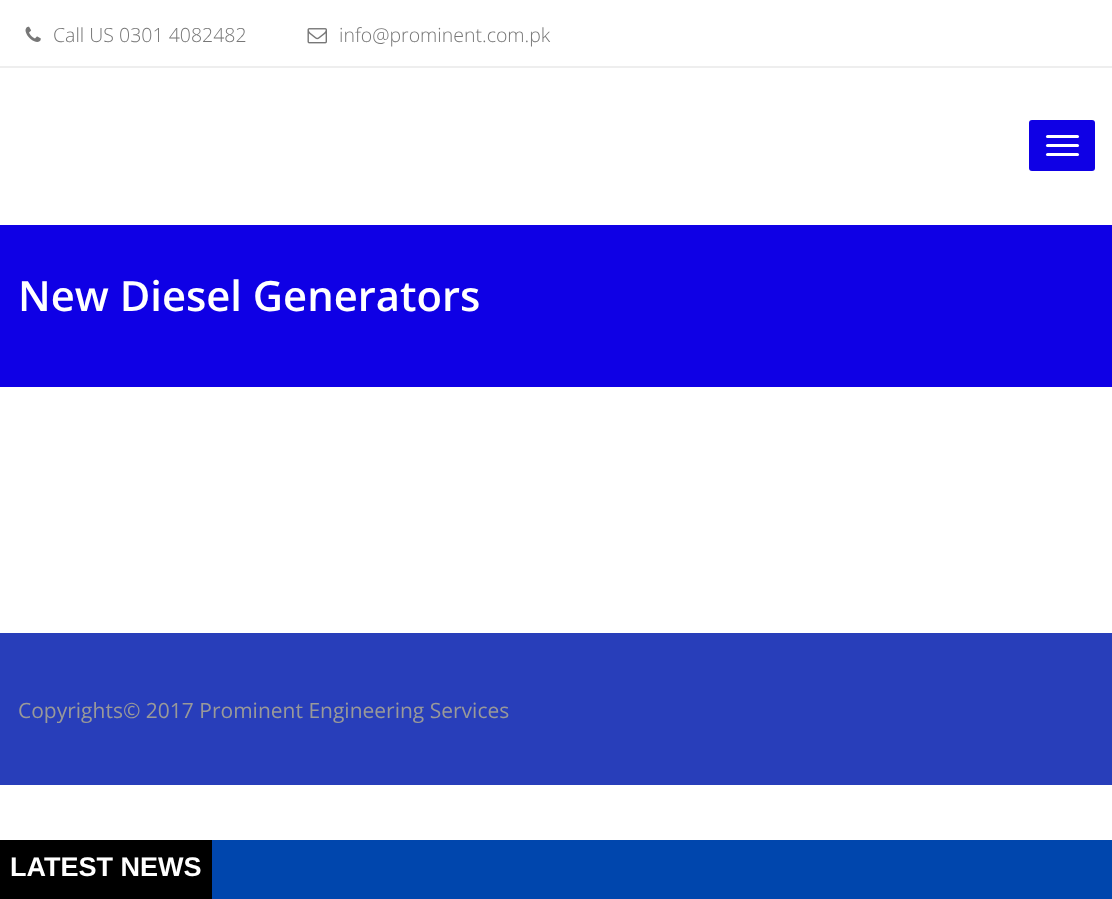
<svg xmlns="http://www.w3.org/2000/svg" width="1112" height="899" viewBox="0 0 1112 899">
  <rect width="100%" height="100%" fill="#ffffff"/>
  <rect x="0" y="66" width="1112" height="2" fill="#eeeeee"/>
  <image x="25" y="26" width="16" height="16" href="img1.png"/>
  <text x="53" y="42" font-family="Open Sans" font-size="19.5" font-weight="300" fill="#777777">Call US 0301 4082482</text>
  <image x="307" y="28" width="20" height="16" href="img2.png"/>
  <text x="339" y="42" font-family="Open Sans" font-size="19.5" font-weight="300" fill="#777777">info@prominent.com.pk</text>
  <rect x="1029" y="120" width="66" height="51" rx="3" fill="#0f00e5"/>
  <rect x="1046" y="135" width="33" height="3" rx="1.5" fill="#ffffff"/>
  <rect x="1046" y="144" width="33" height="3" rx="1.5" fill="#ffffff"/>
  <rect x="1046" y="153" width="33" height="3" rx="1.5" fill="#ffffff"/>
  <rect x="0" y="225" width="1112" height="162" fill="#0f00e5"/>
  <text x="18" y="311" font-family="Open Sans" font-size="41.75" font-weight="600" fill="#ffffff">New Diesel Generators</text>
  <rect x="0" y="633" width="1112" height="152" fill="#283eba"/>
  <text x="18" y="718" font-family="Open Sans" font-size="21" fill="#999999">Copyrights© 2017 Prominent Engineering Services</text>
  <rect x="212" y="840" width="900" height="59" fill="#0046ad"/>
  <rect x="0" y="840" width="212" height="59" fill="#000000"/>
  <text x="10" y="876" font-family="Liberation Sans" font-size="27" font-weight="bold" fill="#ffffff">LATEST NEWS</text>
</svg>
